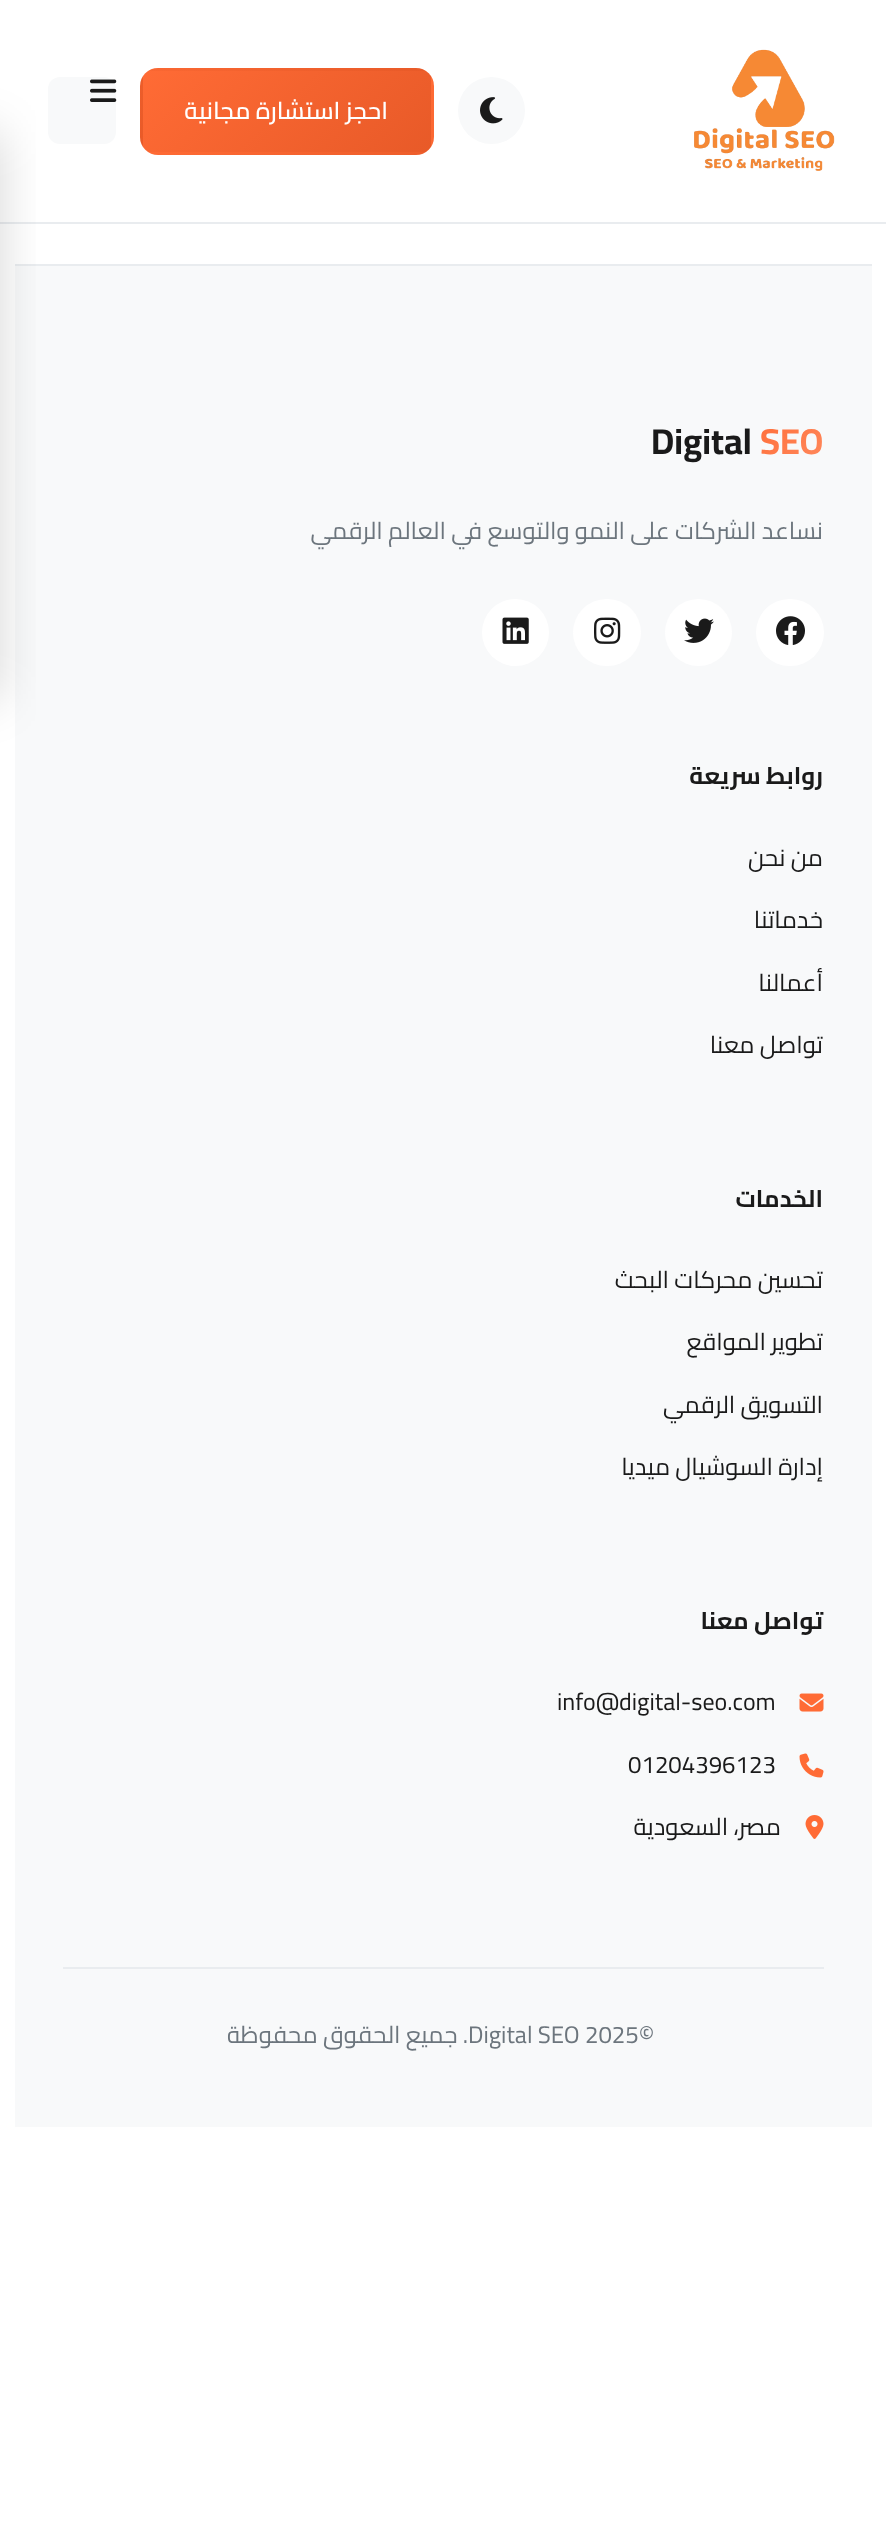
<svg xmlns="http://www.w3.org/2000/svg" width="886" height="2533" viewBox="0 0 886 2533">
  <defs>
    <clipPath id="clip1"><rect x="140" y="68" width="294" height="87" rx="18"/></clipPath>
    <linearGradient id="g1" gradientUnits="userSpaceOnUse" x1="194" y1="-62" x2="379" y2="122"><stop offset="0" stop-color="#ff6b35"/><stop offset="1" stop-color="#e85a28"/></linearGradient>
    <linearGradient id="g2" gradientUnits="userSpaceOnUse" x1="-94" y1="19" x2="91" y2="203"><stop offset="0" stop-color="#ff6b35"/><stop offset="1" stop-color="#e85a28"/></linearGradient>
    <linearGradient id="g3" gradientUnits="userSpaceOnUse" x1="194" y1="19" x2="379" y2="203"><stop offset="0" stop-color="#ff6b35"/><stop offset="1" stop-color="#e85a28"/></linearGradient>
    <linearGradient id="g4" gradientUnits="userSpaceOnUse" x1="482" y1="19" x2="667" y2="203"><stop offset="0" stop-color="#ff6b35"/><stop offset="1" stop-color="#e85a28"/></linearGradient>
    <linearGradient id="g5" gradientUnits="userSpaceOnUse" x1="194" y1="100" x2="379" y2="284"><stop offset="0" stop-color="#ff6b35"/><stop offset="1" stop-color="#e85a28"/></linearGradient>
    <linearGradient id="g6" gradientUnits="userSpaceOnUse" x1="759" y1="408" x2="825" y2="474"><stop offset="0" stop-color="#ff6b35"/><stop offset="1" stop-color="#ff8c61"/></linearGradient>
    <filter id="blur1" x="-50%" y="-200%" width="200%" height="500%"><feGaussianBlur stdDeviation="24"/></filter>
  </defs>
  <rect width="100%" height="100%" fill="#ffffff"/>
  <rect x="0" y="222" width="886" height="2" fill="#e9ecef"/>
  <image x="694" y="49" width="141" height="122" href="img1.png"/>
  <circle cx="491.5" cy="110.5" r="33.5" fill="#f8f9fa"/>
  <image x="480" y="97" width="23" height="27" href="img2.png"/>
  <g clip-path="url(#clip1)">
    <rect x="143" y="68" width="288" height="3" fill="url(#g1)"/>
    <rect x="140" y="71" width="3" height="81" fill="url(#g2)"/>
    <rect x="143" y="71" width="288" height="81" fill="url(#g3)"/>
    <rect x="431" y="71" width="3" height="81" fill="url(#g4)"/>
    <rect x="143" y="152" width="288" height="3" fill="url(#g5)"/>
  </g>
  <text x="388" y="119" font-family="Cairo" font-size="24" font-weight="600" direction="rtl" fill="#ffffff">احجز استشارة مجانية</text>
  <rect x="48" y="77" width="68" height="67" rx="12" fill="#f8f9fa"/>
  <image x="90" y="79" width="27" height="23" href="img3.png"/>
  <rect x="15" y="266" width="857" height="1861" fill="#f8f9fa"/>
  <rect x="15" y="264" width="857" height="2" fill="#e9ecef"/>
  <rect x="-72" y="132" width="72" height="567" fill="#000000" fill-opacity="0.16" filter="url(#blur1)"/>
  <text x="760" y="454" font-family="Cairo" font-size="36" font-weight="bold" fill="url(#g6)">SEO</text>
  <text x="651" y="454" font-family="Cairo" font-size="36" font-weight="bold" fill="#1a1a1a">Digital</text>
  <text x="823" y="539" font-family="Cairo" font-size="24" direction="rtl" fill="#6c757d">نساعد الشركات على النمو والتوسع في العالم الرقمي</text>
  <rect x="756" y="599" width="68" height="67" rx="33.5" fill="#ffffff"/>
  <image x="776" y="616" width="29" height="29" href="img4.png"/>
  <circle cx="698.5" cy="632.5" r="33.5" fill="#ffffff"/>
  <image x="684" y="618" width="30" height="25" href="img5.png"/>
  <rect x="573" y="599" width="68" height="67" rx="33.5" fill="#ffffff"/>
  <image x="594" y="617" width="27" height="27" href="img6.png"/>
  <circle cx="515.5" cy="632.5" r="33.5" fill="#ffffff"/>
  <image x="502" y="617" width="27" height="27" href="img7.png"/>
  <text x="823" y="784" font-family="Cairo" font-size="24" font-weight="bold" direction="rtl" fill="#1a1a1a">روابط سريعة</text>
  <text x="823" y="866" font-family="Cairo" font-size="24" direction="rtl" fill="#1a1a1a">من نحن</text>
  <text x="823" y="928" font-family="Cairo" font-size="24" direction="rtl" fill="#1a1a1a">خدماتنا</text>
  <text x="823" y="991" font-family="Cairo" font-size="24" direction="rtl" fill="#1a1a1a">أعمالنا</text>
  <text x="823" y="1053" font-family="Cairo" font-size="24" direction="rtl" fill="#1a1a1a">تواصل معنا</text>
  <text x="823" y="1207" font-family="Cairo" font-size="24" font-weight="bold" direction="rtl" fill="#1a1a1a">الخدمات</text>
  <text x="823" y="1288" font-family="Cairo" font-size="24" direction="rtl" fill="#1a1a1a">تحسين محركات البحث</text>
  <text x="823" y="1350" font-family="Cairo" font-size="24" direction="rtl" fill="#1a1a1a">تطوير المواقع</text>
  <text x="823" y="1413" font-family="Cairo" font-size="24" direction="rtl" fill="#1a1a1a">التسويق الرقمي</text>
  <text x="823" y="1475" font-family="Cairo" font-size="24" direction="rtl" fill="#1a1a1a">إدارة السوشيال ميديا</text>
  <text x="823" y="1629" font-family="Cairo" font-size="24" font-weight="bold" direction="rtl" fill="#1a1a1a">تواصل معنا</text>
  <image x="799" y="1693" width="25" height="19" href="img8.png"/>
  <text x="557" y="1710" font-family="Cairo" font-size="24" fill="#1a1a1a">info@digital-seo.com</text>
  <image x="799" y="1753" width="25" height="25" href="img9.png"/>
  <text x="628" y="1773" font-family="Cairo" font-size="24" fill="#1a1a1a">01204396123</text>
  <image x="805" y="1815" width="19" height="24" href="img10.png"/>
  <text x="781" y="1835" font-family="Cairo" font-size="24" direction="rtl" fill="#1a1a1a">مصر، السعودية</text>
  <rect x="63" y="1967" width="761" height="2" fill="#e9ecef"/>
  <text x="468" y="2043" font-family="Cairo" font-size="24" fill="#6c757d">Digital SEO 2025©</text>
  <text x="468" y="2043" font-family="Cairo" font-size="24" direction="rtl" fill="#6c757d">. جميع الحقوق محفوظة</text>
</svg>
